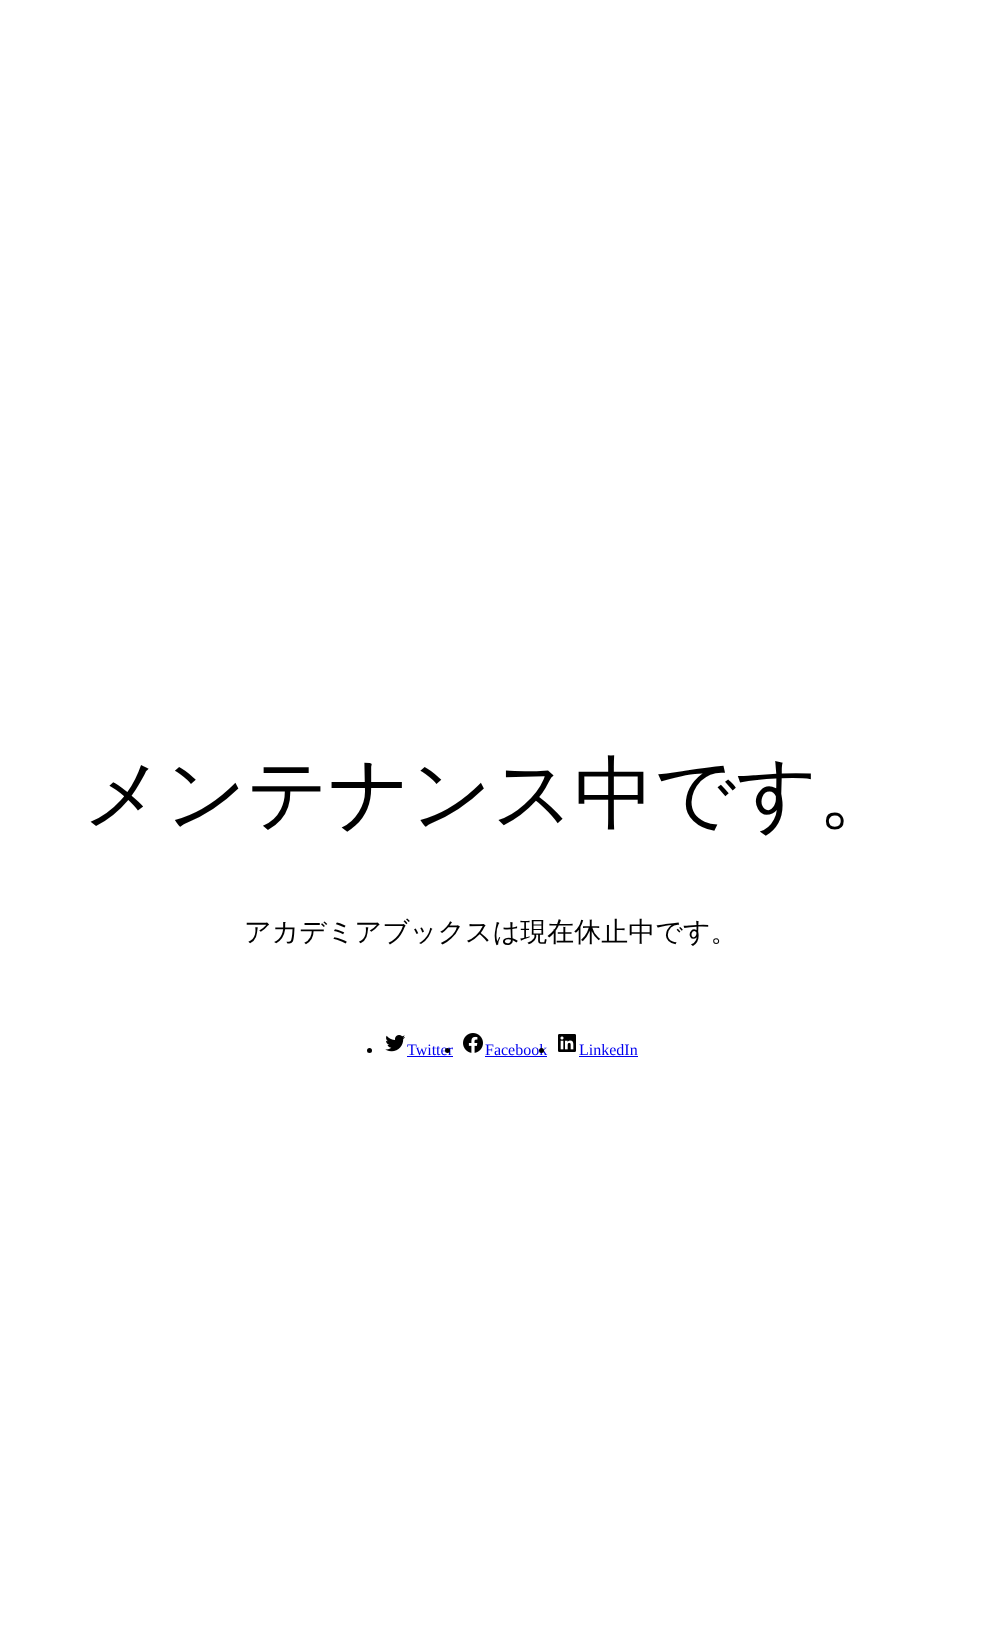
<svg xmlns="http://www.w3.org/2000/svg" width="981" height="1636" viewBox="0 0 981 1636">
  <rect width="100%" height="100%" fill="#ffffff"/>
  <text x="83" y="821" font-family="WenQuanYi Zen Hei" font-size="80" font-weight="500" fill="#000000">メンテナンス中です。</text>
  <text x="244" y="941" font-family="WenQuanYi Zen Hei" font-size="27" font-weight="500" fill="#000000">アカデミアブックスは現在休止中です。</text>
  <circle cx="369.5" cy="1050.5" r="2.5" fill="#000000"/>
  <image x="385" y="1035" width="20" height="17" href="img1.png"/>
  <text x="407" y="1055" font-family="Liberation Serif" font-size="16" fill="#0000ee">Twitter</text>
  <rect x="407" y="1056" width="46" height="1" fill="#0000ee"/>
  <circle cx="447.5" cy="1050.5" r="2.5" fill="#000000"/>
  <image x="463" y="1033" width="20" height="20" href="img2.png"/>
  <text x="485" y="1055" font-family="Liberation Serif" font-size="16" fill="#0000ee">Facebook</text>
  <rect x="485" y="1056" width="62" height="1" fill="#0000ee"/>
  <circle cx="541.5" cy="1050.5" r="2.5" fill="#000000"/>
  <image x="558" y="1034" width="18" height="18" href="img3.png"/>
  <text x="579" y="1055" font-family="Liberation Serif" font-size="16" fill="#0000ee">LinkedIn</text>
  <rect x="579" y="1056" width="59" height="1" fill="#0000ee"/>
</svg>
